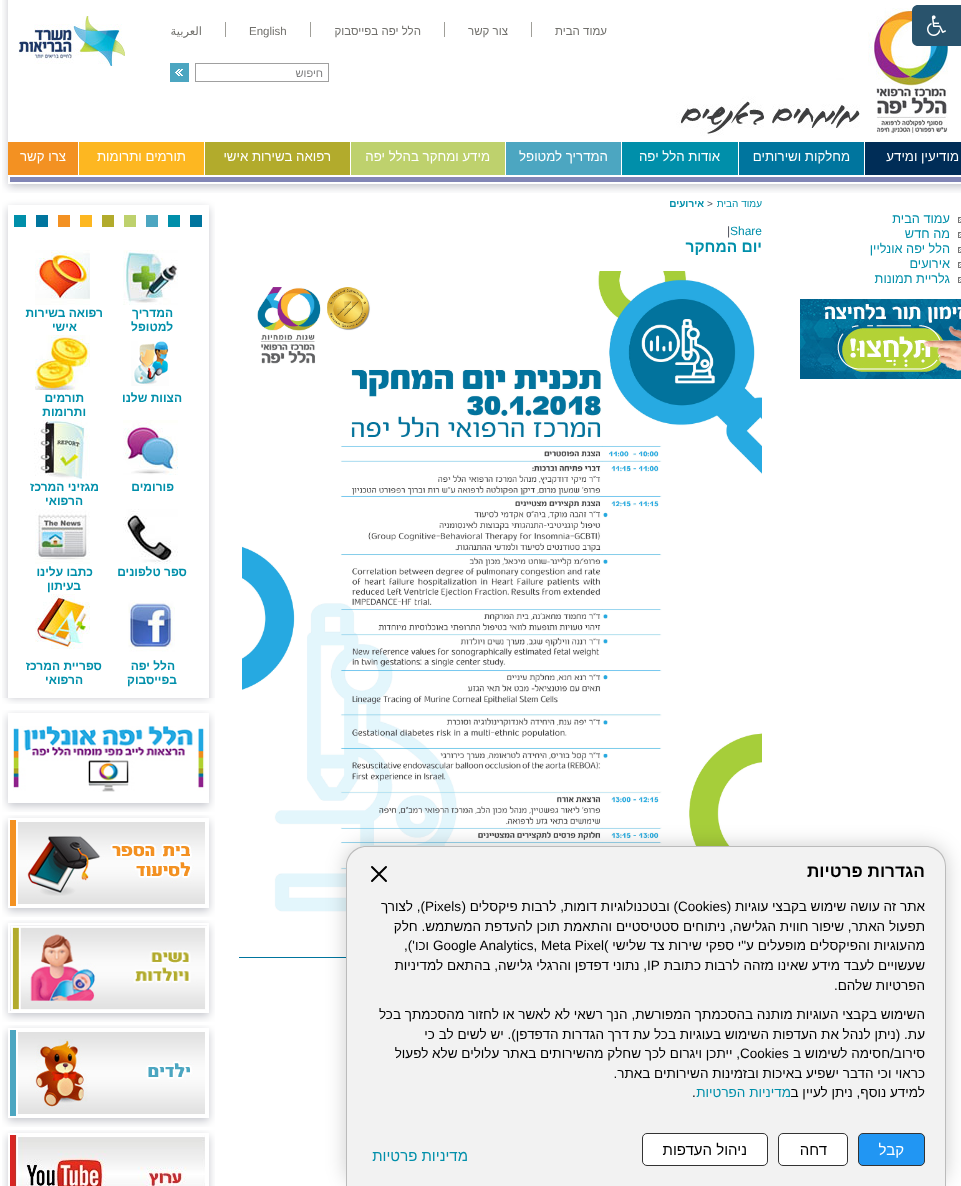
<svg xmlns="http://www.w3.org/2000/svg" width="961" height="1186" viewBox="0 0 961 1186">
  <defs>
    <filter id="blur1" x="-50%" y="-200%" width="200%" height="500%"><feGaussianBlur stdDeviation="10"/></filter>
  </defs>
  <rect width="100%" height="100%" fill="#ffffff"/>
  <image x="2" y="0" width="959" height="193" href="img2.png"/>
  <image x="676" y="8" width="272" height="128" href="img3.png"/>
  <path d="M918 5H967V46H918C914.5 46 912 43.5 912 40V11C912 7.5 914.5 5 918 5Z" fill="#29536c"/>
  <image x="927" y="15" width="19" height="21" href="img1.png"/>
  <text x="607" y="35" font-family="Liberation Sans" font-size="11.5" direction="rtl" fill="#71706c">עמוד הבית</text>
  <rect x="531" y="22" width="1" height="15" fill="#a09f99"/>
  <text x="508" y="35" font-family="Liberation Sans" font-size="11.5" direction="rtl" fill="#71706c">צור קשר</text>
  <rect x="444" y="22" width="1" height="15" fill="#a09f99"/>
  <text x="421" y="35" font-family="Liberation Sans" font-size="11.5" direction="rtl" fill="#71706c">הלל יפה בפייסבוק</text>
  <rect x="310" y="22" width="1" height="15" fill="#a09f99"/>
  <text x="249" y="35" font-family="Liberation Sans" font-size="11.5" fill="#71706c">English</text>
  <rect x="225" y="22" width="1" height="15" fill="#a09f99"/>
  <text x="202" y="35" font-family="DejaVu Sans" font-size="11.5" direction="rtl" fill="#71706c">العربية</text>
  <rect x="195.5" y="63.5" width="133" height="18" fill="none" stroke="#a0a0a0"/>
  <text x="323" y="77" font-family="Liberation Sans" font-size="11" direction="rtl" fill="#7d7d7e">חיפוש</text>
  <image x="170" y="63" width="19" height="19" href="img4.png"/>
  <rect x="10" y="177" width="951" height="5" fill="#8286b6"/>
  <rect x="865" y="142" width="96" height="33" fill="#002d57"/>
  <text x="959" y="161" font-family="Liberation Sans" font-size="13.25" direction="rtl" fill="#ffffff">מודיעין ומידע</text>
  <rect x="739" y="142" width="125" height="33" fill="#00759e"/>
  <text x="850" y="161" font-family="Liberation Sans" font-size="13.25" direction="rtl" fill="#ffffff">מחלקות ושירותים</text>
  <rect x="622" y="142" width="116" height="33" fill="#008faa"/>
  <text x="720" y="161" font-family="Liberation Sans" font-size="13.25" direction="rtl" fill="#ffffff">אודות הלל יפה</text>
  <rect x="506" y="142" width="115" height="33" fill="#4ca6c1"/>
  <text x="608" y="161" font-family="Liberation Sans" font-size="13.25" direction="rtl" fill="#ffffff">המדריך למטופל</text>
  <rect x="351" y="142" width="154" height="33" fill="#bed16d"/>
  <text x="490" y="161" font-family="Liberation Sans" font-size="13.25" direction="rtl" fill="#ffffff">מידע ומחקר בהלל יפה</text>
  <rect x="205" y="142" width="145" height="33" fill="#b2ab2c"/>
  <text x="331" y="161" font-family="Liberation Sans" font-size="13.25" direction="rtl" fill="#ffffff">רפואה בשירות אישי</text>
  <rect x="79" y="142" width="125" height="33" fill="#fdb721"/>
  <text x="186" y="161" font-family="Liberation Sans" font-size="13.25" direction="rtl" fill="#ffffff">תורמים ותרומות</text>
  <rect x="8" y="142" width="70" height="33" fill="#f39122"/>
  <text x="66" y="161" font-family="Liberation Sans" font-size="13.25" direction="rtl" fill="#ffffff">צרו קשר</text>
  <image x="958" y="217" width="3" height="6" href="img5.png"/>
  <text x="950" y="223" font-family="Liberation Sans" font-size="12.75" direction="rtl" fill="#008faa">עמוד הבית</text>
  <image x="958" y="232" width="3" height="6" href="img5.png"/>
  <text x="950" y="238" font-family="Liberation Sans" font-size="12.75" direction="rtl" fill="#008faa">מה חדש</text>
  <image x="958" y="247" width="3" height="6" href="img5.png"/>
  <text x="950" y="253" font-family="Liberation Sans" font-size="12.75" direction="rtl" fill="#008faa">הלל יפה אונליין</text>
  <image x="958" y="262" width="3" height="6" href="img5.png"/>
  <text x="950" y="268" font-family="Liberation Sans" font-size="12.75" direction="rtl" fill="#008faa">אירועים</text>
  <image x="958" y="277" width="3" height="6" href="img5.png"/>
  <text x="950" y="283" font-family="Liberation Sans" font-size="12.75" direction="rtl" fill="#008faa">גלריית תמונות</text>
  <image x="800" y="299" width="161" height="80" href="img6.png"/>
  <text x="762" y="207" font-family="Liberation Sans" font-size="10" direction="rtl" fill="#008faa">עמוד הבית</text>
  <text x="707" y="207" font-family="Liberation Sans" font-size="10" fill="#4d515b">&gt;</text>
  <text x="704" y="207" font-family="Liberation Sans" font-size="10" font-weight="bold" direction="rtl" fill="#008faa">אירועים</text>
  <text x="730" y="235" font-family="Liberation Sans" font-size="12" fill="#008faa">Share</text>
  <text x="727" y="235" font-family="Liberation Sans" font-size="12" fill="#4d515b">|</text>
  <text x="762" y="252" font-family="Liberation Sans" font-size="15.5" font-weight="bold" direction="rtl" fill="#008faa">יום המחקר</text>
  <image x="242" y="271" width="520" height="641" href="img7.png"/>
  <rect x="239" y="957" width="107" height="1" fill="#00759e"/>
  <image x="2" y="698" width="213" height="6" href="img8.png"/>
  <image x="2" y="198" width="213" height="500" href="img9.png"/>
  <image x="123" y="250" width="55" height="55" href="img10.png"/>
  <image x="35" y="250" width="55" height="55" href="img11.png"/>
  <text x="173" y="317" font-family="Liberation Sans" font-size="12" font-weight="bold" direction="rtl" fill="#008faa">המדריך</text>
  <text x="173" y="331" font-family="Liberation Sans" font-size="12" font-weight="bold" direction="rtl" fill="#008faa">למטופל</text>
  <text x="103" y="317" font-family="Liberation Sans" font-size="12" font-weight="bold" direction="rtl" fill="#008faa">רפואה בשירות</text>
  <text x="77" y="331" font-family="Liberation Sans" font-size="12" font-weight="bold" direction="rtl" fill="#008faa">אישי</text>
  <image x="131" y="341" width="38" height="45" href="img12.png"/>
  <image x="35" y="335" width="55" height="55" href="img13.png"/>
  <text x="182" y="402" font-family="Liberation Sans" font-size="12" font-weight="bold" direction="rtl" fill="#008faa">הצוות שלנו</text>
  <text x="84" y="402" font-family="Liberation Sans" font-size="12" font-weight="bold" direction="rtl" fill="#008faa">תורמים</text>
  <text x="86" y="416" font-family="Liberation Sans" font-size="12" font-weight="bold" direction="rtl" fill="#008faa">ותרומות</text>
  <image x="123" y="420" width="55" height="55" href="img14.png"/>
  <image x="34" y="420" width="56" height="59" href="img15.png"/>
  <text x="174" y="491" font-family="Liberation Sans" font-size="12" font-weight="bold" direction="rtl" fill="#008faa">פורומים</text>
  <text x="99" y="491" font-family="Liberation Sans" font-size="12" font-weight="bold" direction="rtl" fill="#008faa">מגזיני המרכז</text>
  <text x="83" y="505" font-family="Liberation Sans" font-size="12" font-weight="bold" direction="rtl" fill="#008faa">הרפואי</text>
  <image x="123" y="509" width="55" height="55" href="img16.png"/>
  <image x="35" y="509" width="55" height="55" href="img17.png"/>
  <text x="187" y="576" font-family="Liberation Sans" font-size="12" font-weight="bold" direction="rtl" fill="#008faa">ספר טלפונים</text>
  <text x="93" y="576" font-family="Liberation Sans" font-size="12" font-weight="bold" direction="rtl" fill="#008faa">כתבו עלינו</text>
  <text x="81" y="590" font-family="Liberation Sans" font-size="12" font-weight="bold" direction="rtl" fill="#008faa">בעיתון</text>
  <image x="128" y="600" width="47" height="52" href="img18.png"/>
  <image x="35" y="594" width="55" height="55" href="img19.png"/>
  <text x="175" y="670" font-family="Liberation Sans" font-size="12" font-weight="bold" direction="rtl" fill="#008faa">הלל יפה</text>
  <text x="177" y="684" font-family="Liberation Sans" font-size="12" font-weight="bold" direction="rtl" fill="#008faa">בפייסבוק</text>
  <text x="102" y="670" font-family="Liberation Sans" font-size="12" font-weight="bold" direction="rtl" fill="#008faa">ספריית המרכז</text>
  <text x="83" y="684" font-family="Liberation Sans" font-size="12" font-weight="bold" direction="rtl" fill="#008faa">הרפואי</text>
  <image x="2" y="710" width="213" height="102" href="img20.png"/>
  <image x="13" y="726" width="192" height="66" href="img21.png"/>
  <image x="2" y="815" width="213" height="102" href="img20.png"/>
  <image x="10" y="820" width="195" height="86" href="img22.png"/>
  <image x="2" y="920" width="213" height="102" href="img20.png"/>
  <image x="10" y="925" width="197" height="86" href="img23.png"/>
  <image x="2" y="1025" width="213" height="102" href="img20.png"/>
  <image x="10" y="1030" width="195" height="86" href="img24.png"/>
  <image x="2" y="1130" width="213" height="56" href="img25.png"/>
  <image x="10" y="1135" width="195" height="51" href="img26.png"/>
  <rect x="346" y="846" width="600" height="340" rx="20" fill="#000000" fill-opacity="0.2" filter="url(#blur1)"/>
  <path d="M366 846H926C937 846 946 855 946 866V1186H346V866C346 855 355 846 366 846Z" fill="#f2f2f2"/>
  <path d="M366 846H926C937 846 946 855 946 866V1186H346V866C346 855 355 846 366 846ZM366 847H926C936 847 945 856 945 866V1186H347V866C347 856 356 847 366 847Z" fill="#bbbbbb" fill-rule="evenodd"/>
  <text x="925" y="877" font-family="Liberation Sans" font-size="17.25" font-weight="bold" direction="rtl" fill="#000000">הגדרות פרטיות</text>
  <path d="M372 867L386 881M372 881L386 867" fill="none" stroke="#000000" stroke-width="2" stroke-linecap="round" stroke-linejoin="round"/>
  <text x="678" y="911" font-family="Liberation Sans" font-size="13.5" fill="#000000">Cookies</text>
  <text x="925" y="911" font-family="Liberation Sans" font-size="13.5" direction="rtl" fill="#000000">אתר זה עושה שימוש בקבצי עוגיות (</text>
  <text x="678" y="911" font-family="Liberation Sans" font-size="13.5" direction="rtl" fill="#000000">) ובטכנולוגיות דומות, לרבות פיקסלים (</text>
  <text x="425" y="911" font-family="Liberation Sans" font-size="13.5" fill="#000000">Pixels</text>
  <text x="425" y="911" font-family="Liberation Sans" font-size="13.5" direction="rtl" fill="#000000">), לצורך</text>
  <text x="925" y="931" font-family="Liberation Sans" font-size="13.5" direction="rtl" fill="#000000">תפעול האתר, שיפור חווית הגלישה, ניתוחים סטטיסטיים והתאמת תוכן להעדפת המשתמש. חלק</text>
  <text x="925" y="950" font-family="Liberation Sans" font-size="13.5" direction="rtl" fill="#000000">מהעוגיות והפיקסלים מופעלים ע"י ספקי שירות צד שלישי</text>
  <text x="433" y="950" font-family="Liberation Sans" font-size="13.5" fill="#000000">Google Analytics, Meta Pixel(</text>
  <text x="429" y="950" font-family="Liberation Sans" font-size="13.5" direction="rtl" fill="#000000">וכו'),</text>
  <text x="925" y="970" font-family="Liberation Sans" font-size="13.5" direction="rtl" fill="#000000">שעשויים לעבד מידע שאינו מזהה לרבות כתובת</text>
  <text x="647" y="970" font-family="Liberation Sans" font-size="13.5" fill="#000000">IP</text>
  <text x="647" y="970" font-family="Liberation Sans" font-size="13.5" direction="rtl" fill="#000000">, נתוני דפדפן והרגלי גלישה, בהתאם למדיניות</text>
  <text x="925" y="990" font-family="Liberation Sans" font-size="13.5" direction="rtl" fill="#000000">הפרטיות שלהם.</text>
  <text x="925" y="1019" font-family="Liberation Sans" font-size="13.5" direction="rtl" fill="#000000">השימוש בקבצי העוגיות מותנה בהסכמתך המפורשת, הנך רשאי לא לאשר או לחזור מהסכמתך בכל</text>
  <text x="925" y="1039" font-family="Liberation Sans" font-size="13.5" direction="rtl" fill="#000000">עת. (ניתן לנהל את העדפות השימוש בעוגיות בכל עת דרך הגדרות הדפדפן). יש לשים לב כי</text>
  <text x="925" y="1058" font-family="Liberation Sans" font-size="13.5" direction="rtl" fill="#000000">סירוב/חסימה לשימוש ב</text>
  <text x="740" y="1058" font-family="Liberation Sans" font-size="13.5" fill="#000000">Cookies</text>
  <text x="740" y="1058" font-family="Liberation Sans" font-size="13.5" direction="rtl" fill="#000000">, ייתכן ויגרום לכך שחלק מהשירותים באתר עלולים שלא לפעול</text>
  <text x="925" y="1078" font-family="Liberation Sans" font-size="13.5" direction="rtl" fill="#000000">כראוי וכי הדבר ישפיע באיכות ובזמינות השירותים באתר.</text>
  <text x="925" y="1097" font-family="Liberation Sans" font-size="13.5" direction="rtl" fill="#000000">למידע נוסף, ניתן לעיין ב</text>
  <text x="791" y="1097" font-family="Liberation Sans" font-size="13.5" direction="rtl" fill="#008faa">מדיניות הפרטיות</text>
  <text x="692" y="1097" font-family="Liberation Sans" font-size="13.5" fill="#000000">.</text>
  <rect x="858.5" y="1133.5" width="66" height="32" rx="4.5" fill="#2196f3" stroke="#333333"/>
  <text x="904" y="1155" font-family="Liberation Sans" font-size="15" direction="rtl" fill="#ffffff">קבל</text>
  <rect x="778.5" y="1133.5" width="69" height="32" rx="4.5" fill="#ffffff" stroke="#333333"/>
  <text x="827" y="1155" font-family="Liberation Sans" font-size="15" direction="rtl" fill="#000000">דחה</text>
  <rect x="642.5" y="1133.5" width="125" height="32" rx="4.5" fill="#ffffff" stroke="#333333"/>
  <text x="747" y="1155" font-family="Liberation Sans" font-size="15" direction="rtl" fill="#000000">ניהול העדפות</text>
  <text x="468" y="1161" font-family="Liberation Sans" font-size="15" direction="rtl" fill="#008faa">מדיניות פרטיות</text>
</svg>
